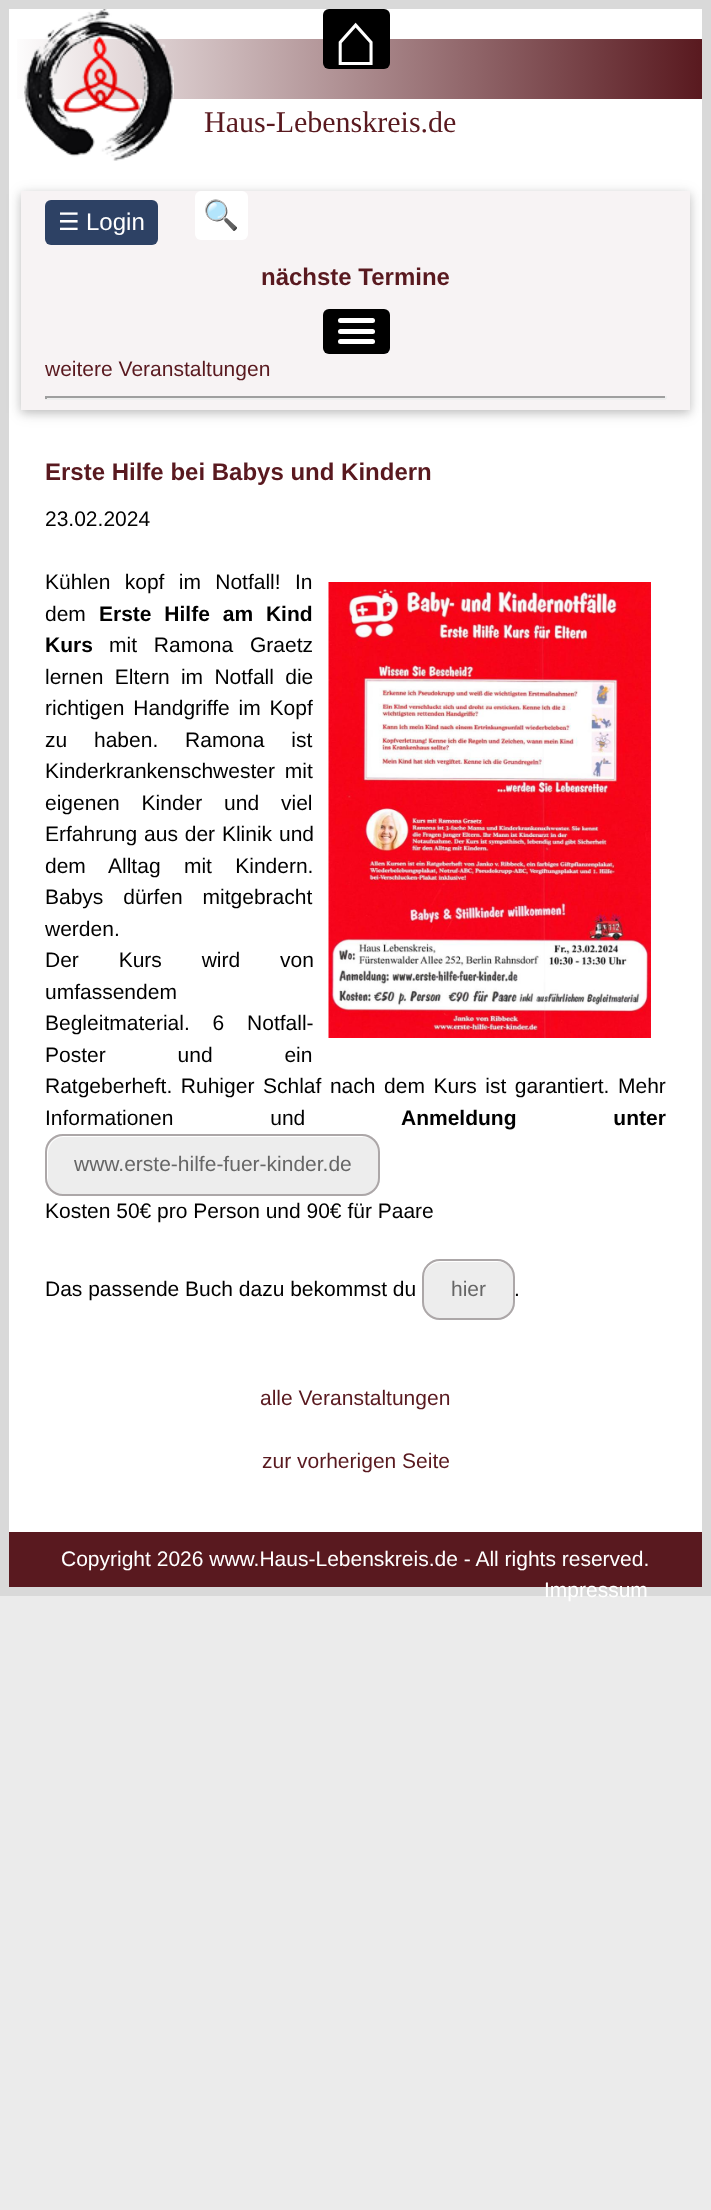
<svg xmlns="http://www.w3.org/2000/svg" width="711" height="2210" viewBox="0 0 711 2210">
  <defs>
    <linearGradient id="g1" gradientUnits="userSpaceOnUse" x1="9" y1="69" x2="702" y2="69"><stop offset="0" stop-color="#ffffff"/><stop offset="1" stop-color="#59191f"/></linearGradient>
    <clipPath id="clip1"><path d="M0 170H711V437H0ZM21 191H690V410H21Z" clip-rule="evenodd"/></clipPath>
    <filter id="blur1" x="-50%" y="-200%" width="200%" height="500%"><feGaussianBlur stdDeviation="7.5"/></filter>
    <clipPath id="clip2"><path d="M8 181H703V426H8ZM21 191H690V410H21Z" clip-rule="evenodd"/></clipPath>
    <filter id="blur2" x="-50%" y="-200%" width="200%" height="500%"><feGaussianBlur stdDeviation="4"/></filter>
    <clipPath id="clip3"><rect x="203" y="198" width="37" height="35"/></clipPath>
  </defs>
  <rect width="100%" height="100%" fill="#ebebeb"/>
  <rect x="9" y="9" width="693" height="1523" fill="#ffffff"/>
  <rect x="4.5" y="4.5" width="702" height="1587" fill="none" stroke="#d9d9d9" stroke-width="9"/>
  <rect x="17" y="39" width="685" height="60" fill="url(#g1)"/>
  <image x="24" y="9" width="150" height="152" href="img1.png"/>
  <rect x="323" y="9" width="67" height="60" rx="6" fill="#000000"/>
  <text x="333" y="65" font-family="Liberation Sans" font-size="75" fill="#ffffff">⌂</text>
  <text x="204" y="132" font-family="Liberation Serif" font-size="30" fill="#59191f">Haus-Lebenskreis.de</text>
  <g clip-path="url(#clip1)">
    <rect x="21" y="194" width="669" height="219" fill="#000000" fill-opacity="0.12" filter="url(#blur1)"/>
  </g>
  <g clip-path="url(#clip2)">
    <rect x="21" y="194" width="669" height="219" fill="#000000" fill-opacity="0.16" filter="url(#blur2)"/>
  </g>
  <rect x="21" y="191" width="669" height="219" fill="#59191f" fill-opacity="0.05"/>
  <rect x="45" y="200" width="113" height="45" rx="6" fill="#2d4164"/>
  <text x="58" y="230" font-family="DejaVu Sans" font-size="24" fill="#ffffff">☰</text>
  <text x="86" y="230" font-family="Liberation Sans" font-size="24" fill="#ffffff">Login</text>
  <rect x="195" y="191" width="53" height="49" rx="6" fill="#ffffff"/>
  <g clip-path="url(#clip3)">
    <text x="203" y="225" font-family="Noto Color Emoji" font-size="29" fill="#757575">🔍</text>
  </g>
  <text x="261" y="285" font-family="Liberation Sans" font-size="24" font-weight="bold" fill="#59191f">nächste Termine</text>
  <rect x="323" y="309" width="67" height="45" rx="6" fill="#000000"/>
  <rect x="338" y="318" width="37" height="5" rx="2.5" fill="#ffffff"/>
  <rect x="338" y="329" width="37" height="5" rx="2.5" fill="#ffffff"/>
  <rect x="338" y="339" width="37" height="5" rx="2.5" fill="#ffffff"/>
  <text x="45" y="376" font-family="Liberation Sans" font-size="21" fill="#59191f">weitere Veranstaltungen</text>
  <rect x="45" y="396" width="621" height="2" fill="#9f9f9f"/>
  <rect x="665" y="396" width="2" height="3" fill="#eeeeee"/>
  <rect x="45" y="398" width="621" height="2" fill="#eeeeee"/>
  <rect x="45" y="396" width="2" height="3" fill="#9f9f9f"/>
  <text x="45" y="480" font-family="Liberation Sans" font-size="24" font-weight="bold" fill="#59191f">Erste Hilfe bei Babys und Kindern</text>
  <text x="45" y="526" font-family="Liberation Sans" font-size="21" fill="#000000">23.02.2024</text>
  <text x="45" y="589" word-spacing="8.5" font-family="Liberation Sans" font-size="21" fill="#000000">Kühlen kopf im Notfall! In</text>
  <image x="328" y="582" width="323" height="456" href="img2.png"/>
  <text x="45" y="621" font-family="Liberation Sans" font-size="21" fill="#000000">dem</text>
  <text x="99" y="621" word-spacing="7" font-family="Liberation Sans" font-size="21" font-weight="bold" fill="#000000">Erste Hilfe am Kind</text>
  <text x="45" y="652" font-family="Liberation Sans" font-size="21" font-weight="bold" fill="#000000">Kurs</text>
  <text x="109" y="652" word-spacing="11" font-family="Liberation Sans" font-size="21" fill="#000000">mit Ramona Graetz</text>
  <text x="45" y="684" word-spacing="5.5" font-family="Liberation Sans" font-size="21" fill="#000000">lernen Eltern im Notfall die</text>
  <text x="45" y="715" word-spacing="3" font-family="Liberation Sans" font-size="21" fill="#000000">richtigen Handgriffe im Kopf</text>
  <text x="45" y="747" word-spacing="21" font-family="Liberation Sans" font-size="21" fill="#000000">zu haben. Ramona ist</text>
  <text x="45" y="778" word-spacing="4" font-family="Liberation Sans" font-size="21" fill="#000000">Kinderkrankenschwester mit</text>
  <text x="45" y="810" word-spacing="16" font-family="Liberation Sans" font-size="21" fill="#000000">eigenen Kinder und viel</text>
  <text x="45" y="841" word-spacing="1" font-family="Liberation Sans" font-size="21" fill="#000000">Erfahrung aus der Klinik und</text>
  <text x="45" y="873" word-spacing="17.5" font-family="Liberation Sans" font-size="21" fill="#000000">dem Alltag mit Kindern.</text>
  <text x="45" y="904" word-spacing="14" font-family="Liberation Sans" font-size="21" fill="#000000">Babys dürfen mitgebracht</text>
  <text x="45" y="936" font-family="Liberation Sans" font-size="21" fill="#000000">werden.</text>
  <text x="45" y="967" word-spacing="34" font-family="Liberation Sans" font-size="21" fill="#000000">Der Kurs wird von</text>
  <text x="45" y="999" font-family="Liberation Sans" font-size="21" fill="#000000">umfassendem</text>
  <text x="45" y="1030" word-spacing="17" font-family="Liberation Sans" font-size="21" fill="#000000">Begleitmaterial. 6 Notfall-</text>
  <text x="45" y="1062" word-spacing="66" font-family="Liberation Sans" font-size="21" fill="#000000">Poster und ein</text>
  <text x="45" y="1093" word-spacing="2.75" font-family="Liberation Sans" font-size="21" fill="#000000">Ratgeberheft. Ruhiger Schlaf nach dem Kurs ist garantiert. Mehr</text>
  <text x="45" y="1125" word-spacing="91" font-family="Liberation Sans" font-size="21" fill="#000000">Informationen und</text>
  <text x="401" y="1125" word-spacing="91" font-family="Liberation Sans" font-size="21" font-weight="bold" fill="#000000">Anmeldung unter</text>
  <rect x="45" y="1134" width="335" height="62" rx="18" fill="#ededed"/>
  <path d="M64 1137H363L369 1138C367 1137 364 1136 361 1136H64C55 1136 47 1144 47 1153V1177C47 1180 48 1183 49 1185C48 1183 48 1181 48 1179V1154C48 1144 55 1137 64 1137Z" fill="#ffffff"/>
  <rect x="46" y="1135" width="333" height="60" rx="17" fill="none" stroke="#aca7a8" stroke-width="2"/>
  <text x="74" y="1171" font-family="Liberation Sans" font-size="21" fill="#666666">www.erste-hilfe-fuer-kinder.de</text>
  <text x="45" y="1218" font-family="Liberation Sans" font-size="21" fill="#000000">Kosten 50€ pro Person und 90€ für Paare</text>
  <text x="45" y="1296" font-family="Liberation Sans" font-size="21" fill="#000000">Das passende Buch dazu bekommst du</text>
  <rect x="422" y="1259" width="93" height="61" rx="18" fill="#ededed"/>
  <path d="M441 1262H498C503 1262 507 1264 510 1267C507 1263 502 1260 496 1260H440C431 1260 423 1268 423 1277V1302C423 1306 424 1310 427 1313C425 1310 424 1307 424 1304V1278C424 1269 432 1262 441 1262Z" fill="#ffffff"/>
  <rect x="423" y="1260" width="91" height="59" rx="17" fill="none" stroke="#aca7a8" stroke-width="2"/>
  <text x="451" y="1296" font-family="Liberation Sans" font-size="21" fill="#666666">hier</text>
  <text x="514" y="1296" font-family="Liberation Sans" font-size="21" fill="#000000">.</text>
  <text x="260" y="1405" font-family="Liberation Sans" font-size="21" fill="#59191f">alle Veranstaltungen</text>
  <text x="262" y="1468" font-family="Liberation Sans" font-size="21" fill="#59191f">zur vorherigen Seite</text>
  <rect x="9" y="1532" width="693" height="55" fill="#59191f"/>
  <text x="61" y="1566" font-family="Liberation Sans" font-size="21" fill="#ffffff">Copyright 2026 www.Haus-Lebenskreis.de - All rights reserved.</text>
  <text x="544" y="1597" font-family="Liberation Sans" font-size="21" fill="#ffffff">Impressum</text>
</svg>
